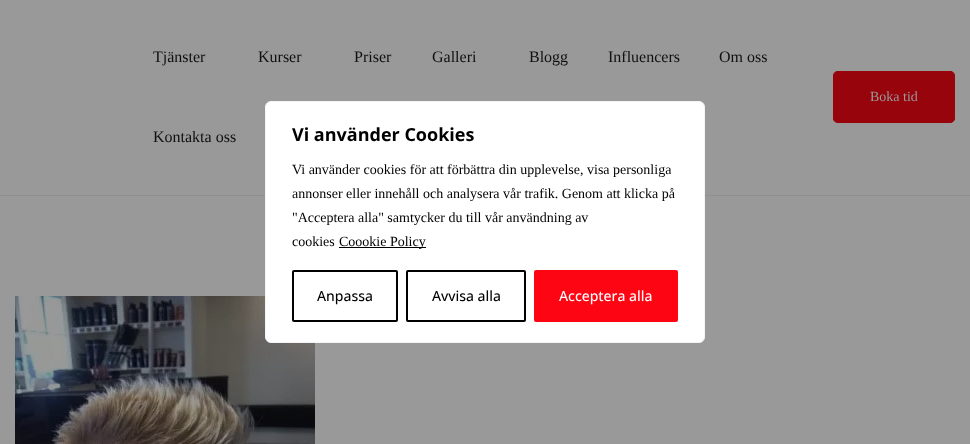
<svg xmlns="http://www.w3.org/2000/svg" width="970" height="444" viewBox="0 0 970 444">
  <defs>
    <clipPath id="clip1"><rect x="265" y="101" width="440" height="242" rx="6"/></clipPath>
    <filter id="blur1" x="-50%" y="-200%" width="200%" height="500%"><feGaussianBlur stdDeviation="5"/></filter>
  </defs>
  <rect width="100%" height="100%" fill="#999999"/>
  <rect x="0" y="195" width="970" height="1" fill="#8f8f8f"/>
  <text x="153" y="62" font-family="Liberation Serif" font-size="16" fill="#101010">Tjänster</text>
  <text x="258" y="62" font-family="Liberation Serif" font-size="16" fill="#101010">Kurser</text>
  <text x="354" y="62" font-family="Liberation Serif" font-size="16" fill="#101010">Priser</text>
  <text x="432" y="62" font-family="Liberation Serif" font-size="16" fill="#101010">Galleri</text>
  <text x="529" y="62" font-family="Liberation Serif" font-size="16" fill="#101010">Blogg</text>
  <text x="608" y="62" font-family="Liberation Serif" font-size="16" fill="#101010">Influencers</text>
  <text x="719" y="62" font-family="Liberation Serif" font-size="16" fill="#101010">Om oss</text>
  <text x="153" y="142" font-family="Liberation Serif" font-size="16" fill="#101010">Kontakta oss</text>
  <rect x="833.5" y="71.5" width="121" height="51" rx="4.5" fill="none" stroke="#98040b"/>
  <rect x="833" y="71" width="122" height="52" rx="5" fill="#98040b"/>
  <text x="870" y="101" font-family="Liberation Serif" font-size="14" fill="#999999">Boka tid</text>
  <image x="15" y="296" width="300" height="148" href="img1.png"/>
  <g clip-path="url(#clip1)">
    <rect x="265" y="100" width="440" height="242" rx="6" fill="#acabab" fill-opacity="0.3" filter="url(#blur1)"/>
  </g>
  <rect x="265.5" y="101.5" width="439" height="241" rx="5.5" fill="#ffffff" stroke="#f4f4f4"/>
  <text x="292" y="141" font-family="Open Sans" font-size="18" font-weight="bold" fill="#000000">Vi använder Cookies</text>
  <text x="292" y="174" font-family="Liberation Serif" font-size="14" fill="#000000">Vi använder cookies för att förbättra din upplevelse, visa personliga</text>
  <text x="292" y="198" font-family="Liberation Serif" font-size="14" fill="#000000">annonser eller innehåll och analysera vår trafik. Genom att klicka på</text>
  <text x="292" y="222" font-family="Liberation Serif" font-size="14" fill="#000000">"Acceptera alla" samtycker du till vår användning av</text>
  <text x="292" y="246" font-family="Liberation Serif" font-size="14" fill="#000000">cookies</text>
  <rect x="339" y="247" width="87" height="1" fill="#000000"/>
  <text x="339" y="246" font-family="Liberation Serif" font-size="14" fill="#000000">Coookie Policy</text>
  <rect x="293" y="271" width="104" height="50" rx="1" fill="none" stroke="#000000" stroke-width="2"/>
  <text x="317" y="301" font-family="Open Sans" font-size="14" font-weight="500" fill="#000000">Anpassa</text>
  <rect x="407" y="271" width="118" height="50" rx="1" fill="none" stroke="#000000" stroke-width="2"/>
  <text x="432" y="301" font-family="Open Sans" font-size="14" font-weight="500" fill="#000000">Avvisa alla</text>
  <rect x="535" y="271" width="142" height="50" rx="1" fill="#fe0513" stroke="#fe0513" stroke-width="2"/>
  <text x="559" y="301" font-family="Open Sans" font-size="14" font-weight="500" fill="#ffffff">Acceptera alla</text>
</svg>
